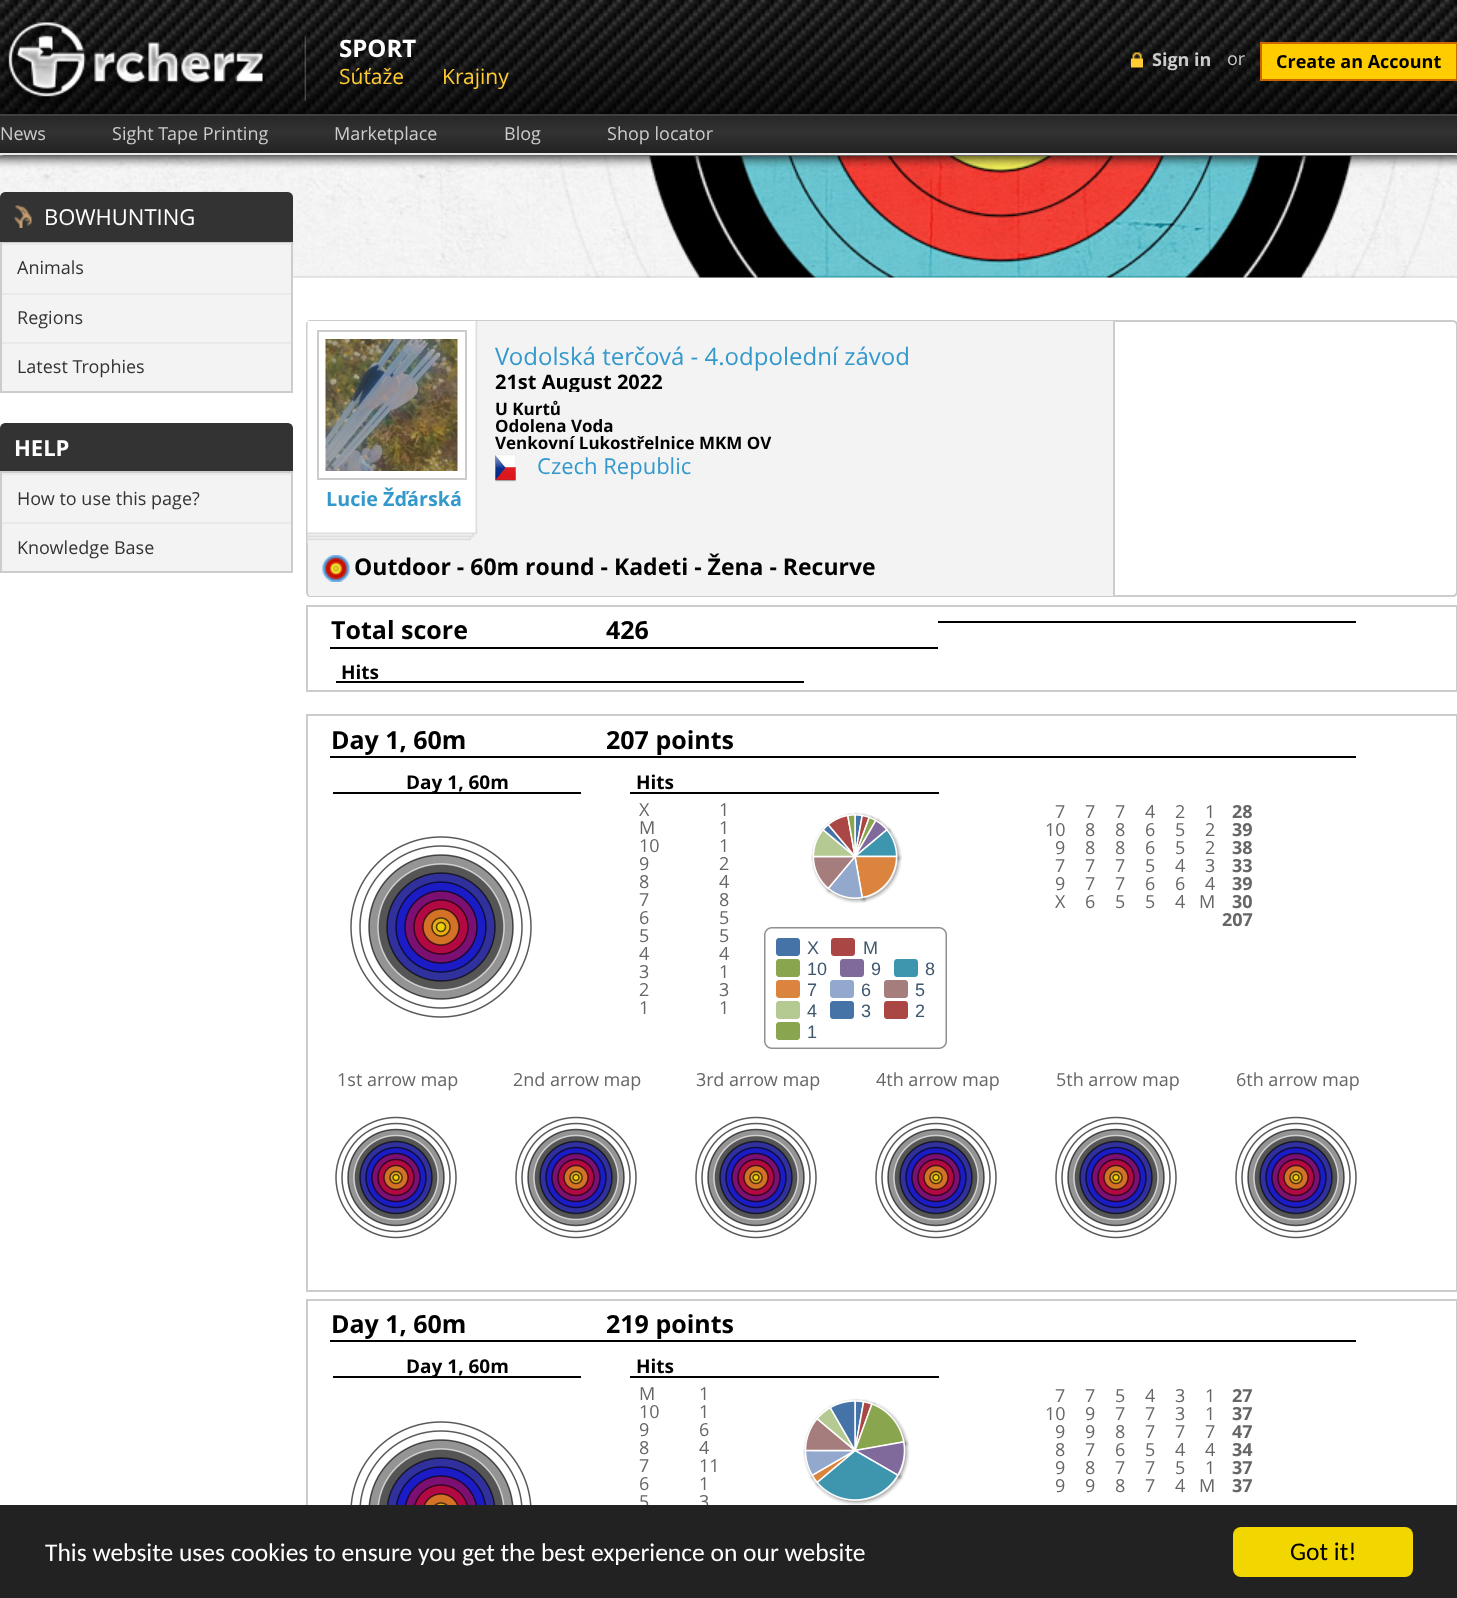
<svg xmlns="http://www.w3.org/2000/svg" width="1457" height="1598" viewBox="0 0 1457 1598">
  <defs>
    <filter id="blur1" x="-50%" y="-200%" width="200%" height="500%"><feGaussianBlur stdDeviation="2"/></filter>
    <linearGradient id="g1" gradientUnits="userSpaceOnUse" x1="729" y1="115" x2="729" y2="153"><stop offset="0" stop-color="#272727"/><stop offset="0.46" stop-color="#323232"/><stop offset="1" stop-color="#222222"/></linearGradient>
    <clipPath id="clip1"><rect x="480" y="368" width="588" height="24"/></clipPath>
  </defs>
  <rect width="100%" height="100%" fill="#ffffff"/>
  <image x="0" y="0" width="1457" height="114" href="img1.png"/>
  <image x="5" y="22" width="262" height="84" href="img2.png"/>
  <image x="303" y="35" width="3" height="66" href="img3.png"/>
  <text x="339" y="57" font-family="Open Sans" font-size="24" font-weight="bold" fill="#ffffff">SPORT</text>
  <text x="339" y="84" font-family="Open Sans" font-size="21" fill="#ffcc33">Súťaže</text>
  <text x="442" y="84" font-family="Open Sans" font-size="21" fill="#ffcc33">Krajiny</text>
  <image x="1131" y="52" width="12" height="16" href="img4.png"/>
  <text x="1152" y="66" font-family="Open Sans" font-size="18" font-weight="bold" fill="#cccccc">Sign in</text>
  <text x="1227" y="65" font-family="Open Sans" font-size="18" fill="#cccccc">or</text>
  <rect x="1261" y="43" width="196" height="37" fill="#ffcc00" stroke="#cc6600" stroke-width="2"/>
  <text x="1276" y="68" font-family="Open Sans" font-size="18" font-weight="bold" fill="#000000">Create an Account</text>
  <rect x="0" y="122" width="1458" height="40" fill="#666666" filter="url(#blur1)"/>
  <rect x="0" y="116" width="1457" height="37" fill="url(#g1)"/>
  <rect x="0" y="114" width="1457" height="2" fill="#404040"/>
  <rect x="0" y="153" width="1457" height="2" fill="#eaeaea"/>
  <text x="0" y="140" font-family="Open Sans" font-size="18" fill="#cccccc">News</text>
  <text x="112" y="140" font-family="Open Sans" font-size="18" fill="#cccccc">Sight Tape Printing</text>
  <text x="334" y="140" font-family="Open Sans" font-size="18" fill="#cccccc">Marketplace</text>
  <text x="504" y="140" font-family="Open Sans" font-size="18" fill="#cccccc">Blog</text>
  <text x="607" y="140" font-family="Open Sans" font-size="18" fill="#cccccc">Shop locator</text>
  <image x="293" y="277" width="1164" height="1" href="img5.png"/>
  <image x="0" y="156" width="1457" height="122" href="img6.png"/>
  <path d="M5 193H288C290 193 292 195 292 197V241H1V197C1 195 3 193 5 193Z" fill="#333333" stroke="#333333" stroke-width="2"/>
  <image x="13" y="205" width="19" height="23" href="img7.png"/>
  <text x="44" y="225" font-family="Open Sans" font-size="22" fill="#ffffff">BOWHUNTING</text>
  <rect x="2" y="245" width="289" height="146" fill="#f3f3f3"/>
  <rect x="1" y="243" width="291" height="149" fill="none" stroke="#cccccc" stroke-width="2"/>
  <rect x="2" y="243" width="289" height="2" fill="#e9e9e9"/>
  <text x="17" y="274" font-family="Open Sans" font-size="18" fill="#333333">Animals</text>
  <rect x="2" y="293" width="289" height="2" fill="#e9e9e9"/>
  <text x="17" y="324" font-family="Open Sans" font-size="18" fill="#333333">Regions</text>
  <rect x="2" y="342" width="289" height="2" fill="#e9e9e9"/>
  <text x="17" y="373" font-family="Open Sans" font-size="18" fill="#333333">Latest Trophies</text>
  <path d="M5 424H288C290 424 292 426 292 428V470H1V428C1 426 3 424 5 424Z" fill="#333333" stroke="#333333" stroke-width="2"/>
  <text x="14" y="456" font-family="Open Sans" font-size="22" font-weight="bold" fill="#ffffff">HELP</text>
  <rect x="2" y="475" width="289" height="96" fill="#f3f3f3"/>
  <rect x="1" y="472" width="291" height="100" fill="none" stroke="#cccccc" stroke-width="2"/>
  <rect x="2" y="473" width="289" height="2" fill="#e9e9e9"/>
  <text x="17" y="505" font-family="Open Sans" font-size="18" fill="#333333">How to use this page?</text>
  <rect x="2" y="522" width="289" height="2" fill="#e9e9e9"/>
  <text x="17" y="554" font-family="Open Sans" font-size="18" fill="#333333">Knowledge Base</text>
  <path d="M311 320H1113V597H311C308 597 306 595 306 592V325C306 322 308 320 311 320Z" fill="#f3f3f3"/>
  <path d="M310 320H1113V597H310C308 597 306 595 306 592V324C306 322 308 320 310 320ZM310 321H1113V596H310C309 596 308 594 308 592V324C308 322 309 321 310 321Z" fill="#cccccc" fill-rule="evenodd"/>
  <text x="495" y="365" font-family="Open Sans" font-size="24" fill="#3399cc">Vodolská terčová - 4.odpolední závod</text>
  <g clip-path="url(#clip1)">
    <text x="495" y="389" font-family="Open Sans" font-size="20" font-weight="bold" fill="#000000">21st August 2022</text>
  </g>
  <text x="495" y="415" font-family="Open Sans" font-size="17" font-weight="bold" fill="#000000">U Kurtů</text>
  <text x="495" y="432" font-family="Open Sans" font-size="17" font-weight="bold" fill="#000000">Odolena Voda</text>
  <text x="495" y="449" font-family="Open Sans" font-size="17" font-weight="bold" fill="#000000">Venkovní Lukostřelnice MKM OV</text>
  <image x="495" y="454" width="21" height="28" href="img8.png"/>
  <text x="537" y="474" font-family="Open Sans" font-size="22" fill="#3399cc">Czech Republic</text>
  <image x="307" y="321" width="171" height="222" href="img9.png"/>
  <rect x="318" y="331" width="148" height="148" fill="none" stroke="#cccccc" stroke-width="2"/>
  <image x="325" y="339" width="133" height="132" href="img10.png"/>
  <text x="326" y="506" font-family="Open Sans" font-size="19.75" font-weight="bold" fill="#3399cc">Lucie Žďárská</text>
  <image x="322" y="555" width="28" height="27" href="img11.png"/>
  <text x="354" y="575" font-family="Open Sans" font-size="23" font-weight="bold" fill="#000000">Outdoor - 60m round - Kadeti - Žena - Recurve</text>
  <path d="M1114 321H1453C1455 321 1457 323 1457 325V592C1457 594 1455 596 1453 596H1114Z" fill="none" stroke="#cccccc" stroke-width="2"/>
  <rect x="307" y="606" width="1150" height="85" fill="none" stroke="#cccccc" stroke-width="2"/>
  <rect x="330" y="647" width="608" height="2" fill="#000000"/>
  <text x="331" y="639" font-family="Open Sans" font-size="25" font-weight="bold" fill="#000000">Total score</text>
  <text x="606" y="639" font-family="Open Sans" font-size="25" font-weight="bold" fill="#000000">426</text>
  <rect x="938" y="621" width="418" height="2" fill="#000000"/>
  <rect x="336" y="681" width="468" height="2" fill="#000000"/>
  <text x="341" y="679" font-family="Open Sans" font-size="19" font-weight="bold" fill="#000000">Hits</text>
  <rect x="307" y="715" width="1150" height="576" fill="none" stroke="#cccccc" stroke-width="2"/>
  <rect x="330" y="756" width="1026" height="2" fill="#000000"/>
  <text x="331" y="749" font-family="Open Sans" font-size="25" font-weight="bold" fill="#000000">Day 1, 60m</text>
  <text x="606" y="749" font-family="Open Sans" font-size="25" font-weight="bold" fill="#000000">207 points</text>
  <rect x="333" y="792" width="248" height="2" fill="#000000"/>
  <text x="406" y="789" font-family="Open Sans" font-size="19" font-weight="bold" fill="#000000">Day 1, 60m</text>
  <image x="350" y="836" width="182" height="182" href="img12.png"/>
  <rect x="630" y="792" width="309" height="2" fill="#000000"/>
  <text x="636" y="789" font-family="Open Sans" font-size="19" font-weight="bold" fill="#000000">Hits</text>
  <text x="639" y="816" font-family="Open Sans" font-size="18" fill="#666666">X</text>
  <text x="719" y="816" font-family="Open Sans" font-size="18" fill="#666666">1</text>
  <text x="639" y="834" font-family="Open Sans" font-size="18" fill="#666666">M</text>
  <text x="719" y="834" font-family="Open Sans" font-size="18" fill="#666666">1</text>
  <text x="639" y="852" font-family="Open Sans" font-size="18" fill="#666666">10</text>
  <text x="719" y="852" font-family="Open Sans" font-size="18" fill="#666666">1</text>
  <text x="639" y="870" font-family="Open Sans" font-size="18" fill="#666666">9</text>
  <text x="719" y="870" font-family="Open Sans" font-size="18" fill="#666666">2</text>
  <text x="639" y="888" font-family="Open Sans" font-size="18" fill="#666666">8</text>
  <text x="719" y="888" font-family="Open Sans" font-size="18" fill="#666666">4</text>
  <text x="639" y="906" font-family="Open Sans" font-size="18" fill="#666666">7</text>
  <text x="719" y="906" font-family="Open Sans" font-size="18" fill="#666666">8</text>
  <text x="639" y="924" font-family="Open Sans" font-size="18" fill="#666666">6</text>
  <text x="719" y="924" font-family="Open Sans" font-size="18" fill="#666666">5</text>
  <text x="639" y="942" font-family="Open Sans" font-size="18" fill="#666666">5</text>
  <text x="719" y="942" font-family="Open Sans" font-size="18" fill="#666666">5</text>
  <text x="639" y="960" font-family="Open Sans" font-size="18" fill="#666666">4</text>
  <text x="719" y="960" font-family="Open Sans" font-size="18" fill="#666666">4</text>
  <text x="639" y="978" font-family="Open Sans" font-size="18" fill="#666666">3</text>
  <text x="719" y="978" font-family="Open Sans" font-size="18" fill="#666666">1</text>
  <text x="639" y="996" font-family="Open Sans" font-size="18" fill="#666666">2</text>
  <text x="719" y="996" font-family="Open Sans" font-size="18" fill="#666666">3</text>
  <text x="639" y="1014" font-family="Open Sans" font-size="18" fill="#666666">1</text>
  <text x="719" y="1014" font-family="Open Sans" font-size="18" fill="#666666">1</text>
  <image x="763" y="812" width="184" height="237" href="img13.png"/>
  <text x="807" y="954" font-family="Liberation Sans" font-size="18" fill="#3e576f">X</text>
  <text x="863" y="954" font-family="Liberation Sans" font-size="18" fill="#3e576f">M</text>
  <text x="807" y="975" font-family="Liberation Sans" font-size="18" fill="#3e576f">10</text>
  <text x="871" y="975" font-family="Liberation Sans" font-size="18" fill="#3e576f">9</text>
  <text x="925" y="975" font-family="Liberation Sans" font-size="18" fill="#3e576f">8</text>
  <text x="807" y="996" font-family="Liberation Sans" font-size="18" fill="#3e576f">7</text>
  <text x="861" y="996" font-family="Liberation Sans" font-size="18" fill="#3e576f">6</text>
  <text x="915" y="996" font-family="Liberation Sans" font-size="18" fill="#3e576f">5</text>
  <text x="807" y="1017" font-family="Liberation Sans" font-size="18" fill="#3e576f">4</text>
  <text x="861" y="1017" font-family="Liberation Sans" font-size="18" fill="#3e576f">3</text>
  <text x="915" y="1017" font-family="Liberation Sans" font-size="18" fill="#3e576f">2</text>
  <text x="807" y="1038" font-family="Liberation Sans" font-size="18" fill="#3e576f">1</text>
  <text x="1055" y="818" font-family="Open Sans" font-size="18" fill="#666666">7</text>
  <text x="1085" y="818" font-family="Open Sans" font-size="18" fill="#666666">7</text>
  <text x="1115" y="818" font-family="Open Sans" font-size="18" fill="#666666">7</text>
  <text x="1145" y="818" font-family="Open Sans" font-size="18" fill="#666666">4</text>
  <text x="1175" y="818" font-family="Open Sans" font-size="18" fill="#666666">2</text>
  <text x="1205" y="818" font-family="Open Sans" font-size="18" fill="#666666">1</text>
  <text x="1232" y="818" font-family="Open Sans" font-size="18" font-weight="bold" fill="#666666">28</text>
  <text x="1045" y="836" font-family="Open Sans" font-size="18" fill="#666666">10</text>
  <text x="1085" y="836" font-family="Open Sans" font-size="18" fill="#666666">8</text>
  <text x="1115" y="836" font-family="Open Sans" font-size="18" fill="#666666">8</text>
  <text x="1145" y="836" font-family="Open Sans" font-size="18" fill="#666666">6</text>
  <text x="1175" y="836" font-family="Open Sans" font-size="18" fill="#666666">5</text>
  <text x="1205" y="836" font-family="Open Sans" font-size="18" fill="#666666">2</text>
  <text x="1232" y="836" font-family="Open Sans" font-size="18" font-weight="bold" fill="#666666">39</text>
  <text x="1055" y="854" font-family="Open Sans" font-size="18" fill="#666666">9</text>
  <text x="1085" y="854" font-family="Open Sans" font-size="18" fill="#666666">8</text>
  <text x="1115" y="854" font-family="Open Sans" font-size="18" fill="#666666">8</text>
  <text x="1145" y="854" font-family="Open Sans" font-size="18" fill="#666666">6</text>
  <text x="1175" y="854" font-family="Open Sans" font-size="18" fill="#666666">5</text>
  <text x="1205" y="854" font-family="Open Sans" font-size="18" fill="#666666">2</text>
  <text x="1232" y="854" font-family="Open Sans" font-size="18" font-weight="bold" fill="#666666">38</text>
  <text x="1055" y="872" font-family="Open Sans" font-size="18" fill="#666666">7</text>
  <text x="1085" y="872" font-family="Open Sans" font-size="18" fill="#666666">7</text>
  <text x="1115" y="872" font-family="Open Sans" font-size="18" fill="#666666">7</text>
  <text x="1145" y="872" font-family="Open Sans" font-size="18" fill="#666666">5</text>
  <text x="1175" y="872" font-family="Open Sans" font-size="18" fill="#666666">4</text>
  <text x="1205" y="872" font-family="Open Sans" font-size="18" fill="#666666">3</text>
  <text x="1232" y="872" font-family="Open Sans" font-size="18" font-weight="bold" fill="#666666">33</text>
  <text x="1055" y="890" font-family="Open Sans" font-size="18" fill="#666666">9</text>
  <text x="1085" y="890" font-family="Open Sans" font-size="18" fill="#666666">7</text>
  <text x="1115" y="890" font-family="Open Sans" font-size="18" fill="#666666">7</text>
  <text x="1145" y="890" font-family="Open Sans" font-size="18" fill="#666666">6</text>
  <text x="1175" y="890" font-family="Open Sans" font-size="18" fill="#666666">6</text>
  <text x="1205" y="890" font-family="Open Sans" font-size="18" fill="#666666">4</text>
  <text x="1232" y="890" font-family="Open Sans" font-size="18" font-weight="bold" fill="#666666">39</text>
  <text x="1055" y="908" font-family="Open Sans" font-size="18" fill="#666666">X</text>
  <text x="1085" y="908" font-family="Open Sans" font-size="18" fill="#666666">6</text>
  <text x="1115" y="908" font-family="Open Sans" font-size="18" fill="#666666">5</text>
  <text x="1145" y="908" font-family="Open Sans" font-size="18" fill="#666666">5</text>
  <text x="1175" y="908" font-family="Open Sans" font-size="18" fill="#666666">4</text>
  <text x="1199" y="908" font-family="Open Sans" font-size="18" fill="#666666">M</text>
  <text x="1232" y="908" font-family="Open Sans" font-size="18" font-weight="bold" fill="#666666">30</text>
  <text x="1222" y="926" font-family="Open Sans" font-size="18" font-weight="bold" fill="#666666">207</text>
  <text x="337" y="1086" font-family="Open Sans" font-size="18" fill="#666666">1st arrow map</text>
  <image x="335" y="1116" width="122" height="123" href="img14.png"/>
  <text x="513" y="1086" font-family="Open Sans" font-size="18" fill="#666666">2nd arrow map</text>
  <image x="515" y="1116" width="122" height="123" href="img14.png"/>
  <text x="696" y="1086" font-family="Open Sans" font-size="18" fill="#666666">3rd arrow map</text>
  <image x="695" y="1116" width="122" height="123" href="img14.png"/>
  <text x="876" y="1086" font-family="Open Sans" font-size="18" fill="#666666">4th arrow map</text>
  <image x="875" y="1116" width="122" height="123" href="img14.png"/>
  <text x="1056" y="1086" font-family="Open Sans" font-size="18" fill="#666666">5th arrow map</text>
  <image x="1055" y="1116" width="122" height="123" href="img14.png"/>
  <text x="1236" y="1086" font-family="Open Sans" font-size="18" fill="#666666">6th arrow map</text>
  <image x="1235" y="1116" width="122" height="123" href="img14.png"/>
  <rect x="307" y="1300" width="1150" height="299" fill="none" stroke="#cccccc" stroke-width="2"/>
  <rect x="330" y="1340" width="1026" height="2" fill="#000000"/>
  <text x="331" y="1333" font-family="Open Sans" font-size="25" font-weight="bold" fill="#000000">Day 1, 60m</text>
  <text x="606" y="1333" font-family="Open Sans" font-size="25" font-weight="bold" fill="#000000">219 points</text>
  <rect x="333" y="1376" width="248" height="2" fill="#000000"/>
  <text x="406" y="1373" font-family="Open Sans" font-size="19" font-weight="bold" fill="#000000">Day 1, 60m</text>
  <image x="350" y="1421" width="182" height="84" href="img15.png"/>
  <rect x="630" y="1376" width="309" height="2" fill="#000000"/>
  <text x="636" y="1373" font-family="Open Sans" font-size="19" font-weight="bold" fill="#000000">Hits</text>
  <text x="639" y="1400" font-family="Open Sans" font-size="18" fill="#666666">M</text>
  <text x="699" y="1400" font-family="Open Sans" font-size="18" fill="#666666">1</text>
  <text x="639" y="1418" font-family="Open Sans" font-size="18" fill="#666666">10</text>
  <text x="699" y="1418" font-family="Open Sans" font-size="18" fill="#666666">1</text>
  <text x="639" y="1436" font-family="Open Sans" font-size="18" fill="#666666">9</text>
  <text x="699" y="1436" font-family="Open Sans" font-size="18" fill="#666666">6</text>
  <text x="639" y="1454" font-family="Open Sans" font-size="18" fill="#666666">8</text>
  <text x="699" y="1454" font-family="Open Sans" font-size="18" fill="#666666">4</text>
  <text x="639" y="1472" font-family="Open Sans" font-size="18" fill="#666666">7</text>
  <text x="699" y="1472" font-family="Open Sans" font-size="18" fill="#666666">11</text>
  <text x="639" y="1490" font-family="Open Sans" font-size="18" fill="#666666">6</text>
  <text x="699" y="1490" font-family="Open Sans" font-size="18" fill="#666666">1</text>
  <text x="639" y="1508" font-family="Open Sans" font-size="18" fill="#666666">5</text>
  <text x="699" y="1508" font-family="Open Sans" font-size="18" fill="#666666">3</text>
  <image x="768" y="1398" width="174" height="107" href="img16.png"/>
  <text x="1055" y="1402" font-family="Open Sans" font-size="18" fill="#666666">7</text>
  <text x="1085" y="1402" font-family="Open Sans" font-size="18" fill="#666666">7</text>
  <text x="1115" y="1402" font-family="Open Sans" font-size="18" fill="#666666">5</text>
  <text x="1145" y="1402" font-family="Open Sans" font-size="18" fill="#666666">4</text>
  <text x="1175" y="1402" font-family="Open Sans" font-size="18" fill="#666666">3</text>
  <text x="1205" y="1402" font-family="Open Sans" font-size="18" fill="#666666">1</text>
  <text x="1232" y="1402" font-family="Open Sans" font-size="18" font-weight="bold" fill="#666666">27</text>
  <text x="1045" y="1420" font-family="Open Sans" font-size="18" fill="#666666">10</text>
  <text x="1085" y="1420" font-family="Open Sans" font-size="18" fill="#666666">9</text>
  <text x="1115" y="1420" font-family="Open Sans" font-size="18" fill="#666666">7</text>
  <text x="1145" y="1420" font-family="Open Sans" font-size="18" fill="#666666">7</text>
  <text x="1175" y="1420" font-family="Open Sans" font-size="18" fill="#666666">3</text>
  <text x="1205" y="1420" font-family="Open Sans" font-size="18" fill="#666666">1</text>
  <text x="1232" y="1420" font-family="Open Sans" font-size="18" font-weight="bold" fill="#666666">37</text>
  <text x="1055" y="1438" font-family="Open Sans" font-size="18" fill="#666666">9</text>
  <text x="1085" y="1438" font-family="Open Sans" font-size="18" fill="#666666">9</text>
  <text x="1115" y="1438" font-family="Open Sans" font-size="18" fill="#666666">8</text>
  <text x="1145" y="1438" font-family="Open Sans" font-size="18" fill="#666666">7</text>
  <text x="1175" y="1438" font-family="Open Sans" font-size="18" fill="#666666">7</text>
  <text x="1205" y="1438" font-family="Open Sans" font-size="18" fill="#666666">7</text>
  <text x="1232" y="1438" font-family="Open Sans" font-size="18" font-weight="bold" fill="#666666">47</text>
  <text x="1055" y="1456" font-family="Open Sans" font-size="18" fill="#666666">8</text>
  <text x="1085" y="1456" font-family="Open Sans" font-size="18" fill="#666666">7</text>
  <text x="1115" y="1456" font-family="Open Sans" font-size="18" fill="#666666">6</text>
  <text x="1145" y="1456" font-family="Open Sans" font-size="18" fill="#666666">5</text>
  <text x="1175" y="1456" font-family="Open Sans" font-size="18" fill="#666666">4</text>
  <text x="1205" y="1456" font-family="Open Sans" font-size="18" fill="#666666">4</text>
  <text x="1232" y="1456" font-family="Open Sans" font-size="18" font-weight="bold" fill="#666666">34</text>
  <text x="1055" y="1474" font-family="Open Sans" font-size="18" fill="#666666">9</text>
  <text x="1085" y="1474" font-family="Open Sans" font-size="18" fill="#666666">8</text>
  <text x="1115" y="1474" font-family="Open Sans" font-size="18" fill="#666666">7</text>
  <text x="1145" y="1474" font-family="Open Sans" font-size="18" fill="#666666">7</text>
  <text x="1175" y="1474" font-family="Open Sans" font-size="18" fill="#666666">5</text>
  <text x="1205" y="1474" font-family="Open Sans" font-size="18" fill="#666666">1</text>
  <text x="1232" y="1474" font-family="Open Sans" font-size="18" font-weight="bold" fill="#666666">37</text>
  <text x="1055" y="1492" font-family="Open Sans" font-size="18" fill="#666666">9</text>
  <text x="1085" y="1492" font-family="Open Sans" font-size="18" fill="#666666">9</text>
  <text x="1115" y="1492" font-family="Open Sans" font-size="18" fill="#666666">8</text>
  <text x="1145" y="1492" font-family="Open Sans" font-size="18" fill="#666666">7</text>
  <text x="1175" y="1492" font-family="Open Sans" font-size="18" fill="#666666">4</text>
  <text x="1199" y="1492" font-family="Open Sans" font-size="18" fill="#666666">M</text>
  <text x="1232" y="1492" font-family="Open Sans" font-size="18" font-weight="bold" fill="#666666">37</text>
  <rect x="0" y="1505" width="1457" height="93" fill="#222222"/>
  <text x="45" y="1561" font-family="Carlito" font-size="25.5" fill="#ffffff">This website uses cookies to ensure you get the best experience on our website</text>
  <rect x="1233" y="1527" width="180" height="50" rx="8" fill="#f1d600"/>
  <text x="1290" y="1560" font-family="Carlito" font-size="25.5" fill="#000000">Got it!</text>
</svg>
